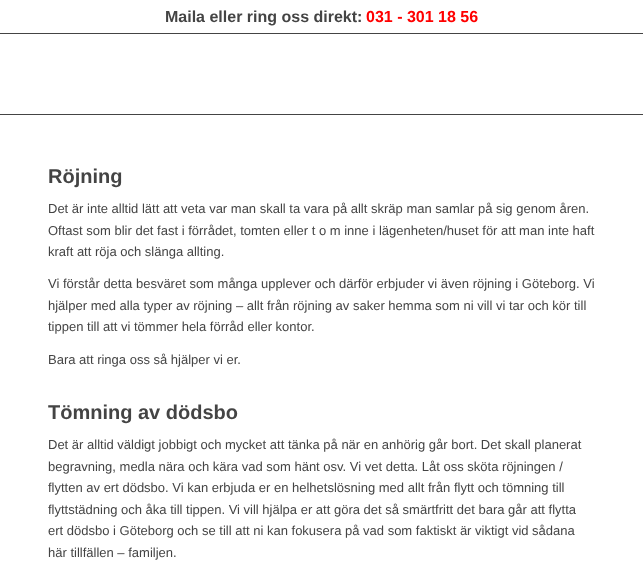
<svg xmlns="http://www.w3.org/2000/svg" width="643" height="575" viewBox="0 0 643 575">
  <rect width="100%" height="100%" fill="#ffffff"/>
  <text x="165" y="22" font-family="Liberation Sans" font-size="16" font-weight="bold" fill="#444444">Maila eller ring oss direkt:</text>
  <text x="366" y="22" font-family="Liberation Sans" font-size="16" font-weight="bold" fill="#ff0000">031 - 301 18 56</text>
  <rect x="0" y="33" width="643" height="1" fill="#444444"/>
  <rect x="0" y="114" width="643" height="1" fill="#444444"/>
  <text x="48" y="183" font-family="Liberation Sans" font-size="20" font-weight="bold" fill="#444444">Röjning</text>
  <text x="48" y="213" font-family="Liberation Sans" font-size="13" fill="#444444">Det är inte alltid lätt att veta var man skall ta vara på allt skräp man samlar på sig genom åren.</text>
  <text x="48" y="235" font-family="Liberation Sans" font-size="13" fill="#444444">Oftast som blir det fast i förrådet, tomten eller t o m inne i lägenheten/huset för att man inte haft</text>
  <text x="48" y="256" font-family="Liberation Sans" font-size="13" fill="#444444">kraft att röja och slänga allting.</text>
  <text x="48" y="288" font-family="Liberation Sans" font-size="13" fill="#444444">Vi förstår detta besväret som många upplever och därför erbjuder vi även röjning i Göteborg. Vi</text>
  <text x="48" y="310" font-family="Liberation Sans" font-size="13" fill="#444444">hjälper med alla typer av röjning – allt från röjning av saker hemma som ni vill vi tar och kör till</text>
  <text x="48" y="331" font-family="Liberation Sans" font-size="13" fill="#444444">tippen till att vi tömmer hela förråd eller kontor.</text>
  <text x="48" y="364" font-family="Liberation Sans" font-size="13" fill="#444444">Bara att ringa oss så hjälper vi er.</text>
  <text x="48" y="419" font-family="Liberation Sans" font-size="20" font-weight="bold" fill="#444444">Tömning av dödsbo</text>
  <text x="48" y="449" font-family="Liberation Sans" font-size="13" fill="#444444">Det är alltid väldigt jobbigt och mycket att tänka på när en anhörig går bort. Det skall planerat</text>
  <text x="48" y="471" font-family="Liberation Sans" font-size="13" fill="#444444">begravning, medla nära och kära vad som hänt osv. Vi vet detta. Låt oss sköta röjningen /</text>
  <text x="48" y="492" font-family="Liberation Sans" font-size="13" fill="#444444">flytten av ert dödsbo. Vi kan erbjuda er en helhetslösning med allt från flytt och tömning till</text>
  <text x="48" y="514" font-family="Liberation Sans" font-size="13" fill="#444444">flyttstädning och åka till tippen. Vi vill hjälpa er att göra det så smärtfritt det bara går att flytta</text>
  <text x="48" y="535" font-family="Liberation Sans" font-size="13" fill="#444444">ert dödsbo i Göteborg och se till att ni kan fokusera på vad som faktiskt är viktigt vid sådana</text>
  <text x="48" y="557" font-family="Liberation Sans" font-size="13" fill="#444444">här tillfällen – familjen.</text>
</svg>
